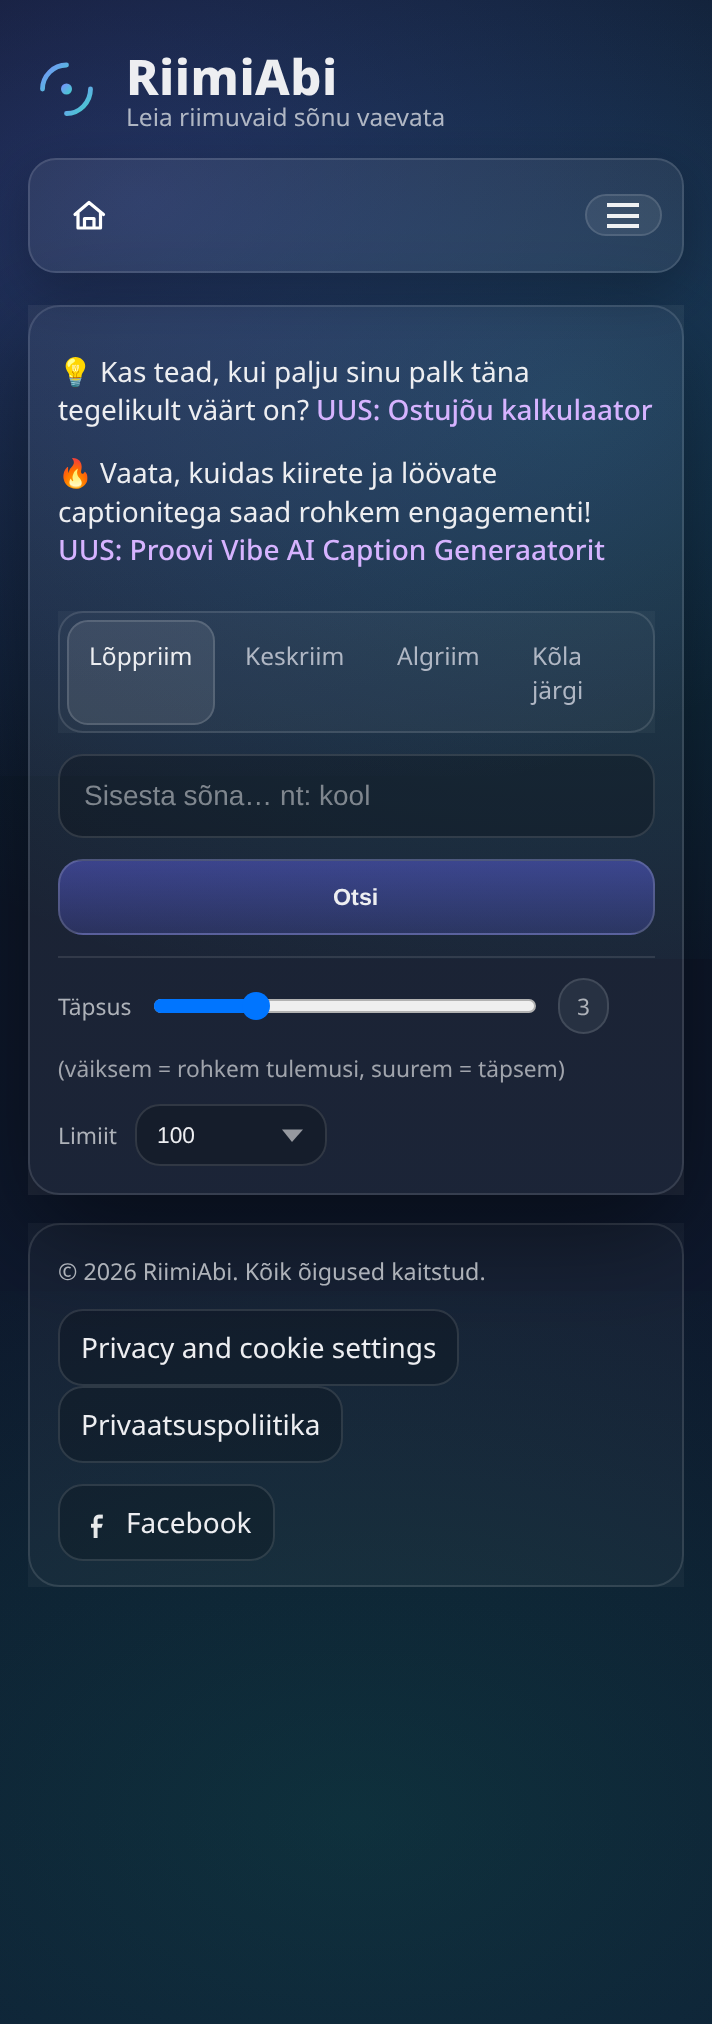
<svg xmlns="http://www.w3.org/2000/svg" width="712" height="2024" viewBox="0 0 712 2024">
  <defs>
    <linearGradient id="g1" gradientUnits="userSpaceOnUse" x1="356" y1="0" x2="356" y2="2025"><stop offset="0" stop-color="#0b1220"/><stop offset="1" stop-color="#0f1b33"/></linearGradient>
    <radialGradient id="g2" gradientUnits="userSpaceOnUse" cx="0" cy="0" r="1" gradientTransform="matrix(1575 0 0 1050 356 1822)"><stop offset="0" stop-color="#10b981" stop-opacity="0.14"/><stop offset="0.6" stop-color="#10b981" stop-opacity="0"/></radialGradient>
    <radialGradient id="g3" gradientUnits="userSpaceOnUse" cx="0" cy="0" r="1" gradientTransform="matrix(1575 0 0 1050 570 405)"><stop offset="0" stop-color="#22d3ee" stop-opacity="0.18"/><stop offset="0.6" stop-color="#22d3ee" stop-opacity="0"/></radialGradient>
    <radialGradient id="g4" gradientUnits="userSpaceOnUse" cx="0" cy="0" r="1" gradientTransform="matrix(1575 0 0 1050 142 202)"><stop offset="0" stop-color="#6366f1" stop-opacity="0.25"/><stop offset="0.6" stop-color="#6366f1" stop-opacity="0"/></radialGradient>
    <linearGradient id="g5" gradientUnits="userSpaceOnUse" x1="42" y1="65" x2="67" y2="89"><stop offset="0" stop-color="#7c8cff"/><stop offset="1" stop-color="#3dd6c6"/></linearGradient>
    <linearGradient id="g6" gradientUnits="userSpaceOnUse" x1="67" y1="89" x2="91" y2="113"><stop offset="0" stop-color="#7c8cff"/><stop offset="1" stop-color="#3dd6c6"/></linearGradient>
    <linearGradient id="g7" gradientUnits="userSpaceOnUse" x1="61" y1="84" x2="72" y2="95"><stop offset="0" stop-color="#7c8cff"/><stop offset="1" stop-color="#3dd6c6"/></linearGradient>
    <clipPath id="clip1"><path d="M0 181H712V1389H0ZM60 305H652C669.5 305 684 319.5 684 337V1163C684 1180.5 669.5 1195 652 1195H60C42.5 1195 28 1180.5 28 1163V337C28 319.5 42.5 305 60 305Z" clip-rule="evenodd"/></clipPath>
    <filter id="blur1" x="-50%" y="-200%" width="200%" height="500%"><feGaussianBlur stdDeviation="52.5"/></filter>
    <clipPath id="clip2"><path d="M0 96H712V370H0ZM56 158H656C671.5 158 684 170.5 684 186V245C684 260.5 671.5 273 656 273H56C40.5 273 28 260.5 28 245V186C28 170.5 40.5 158 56 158Z" clip-rule="evenodd"/></clipPath>
    <filter id="blur2" x="-50%" y="-200%" width="200%" height="500%"><feGaussianBlur stdDeviation="26"/></filter>
    <clipPath id="clip3"><rect x="58" y="859" width="597" height="76" rx="25"/></clipPath>
    <linearGradient id="g8" gradientUnits="userSpaceOnUse" x1="356" y1="789" x2="356" y2="861"><stop offset="0" stop-color="#6366f1" stop-opacity="0.45"/><stop offset="1" stop-color="#6366f1" stop-opacity="0.22"/></linearGradient>
    <linearGradient id="g9" gradientUnits="userSpaceOnUse" x1="356" y1="861" x2="356" y2="933"><stop offset="0" stop-color="#6366f1" stop-opacity="0.45"/><stop offset="1" stop-color="#6366f1" stop-opacity="0.22"/></linearGradient>
    <linearGradient id="g10" gradientUnits="userSpaceOnUse" x1="356" y1="933" x2="356" y2="1005"><stop offset="0" stop-color="#6366f1" stop-opacity="0.45"/><stop offset="1" stop-color="#6366f1" stop-opacity="0.22"/></linearGradient>
  </defs>
  <rect width="100%" height="100%" fill="#ffffff"/>
  <rect x="0" y="0" width="712" height="2024" fill="url(#g1)"/>
  <rect x="0" y="1291" width="712" height="733" fill="url(#g2)"/>
  <rect x="0" y="0" width="712" height="959" fill="url(#g3)"/>
  <rect x="0" y="0" width="712" height="776" fill="url(#g4)"/>
  <path d="M42.5 89C42.5 76 53.5 65 66.5 65" fill="none" stroke="url(#g5)" stroke-width="4.8" stroke-linecap="round"/>
  <path d="M90.5 89C90.5 102.5 79.5 113.5 66.5 113.5" fill="none" stroke="url(#g6)" stroke-width="4.8" stroke-linecap="round"/>
  <circle cx="66.5" cy="89" r="5.5" fill="url(#g7)"/>
  <text x="126" y="95" font-family="Noto Sans" font-size="49" font-weight="800" letter-spacing="0.5" fill="#edeef1">RiimiAbi</text>
  <text x="126" y="126" font-family="Noto Sans" font-size="24.5" fill="#b0b7c4">Leia riimuvaid sõnu vaevata</text>
  <rect x="28" y="1223" width="656" height="364" fill="#ffffff" fill-opacity="0.04"/>
  <rect x="29" y="1224" width="654" height="362" rx="31" fill="none" stroke="#ffffff" stroke-opacity="0.12" stroke-width="2"/>
  <rect x="58" y="1309" width="401" height="77" rx="25" fill="#000000" fill-opacity="0.18"/>
  <rect x="59" y="1310" width="399" height="75" rx="24" fill="none" stroke="#ffffff" stroke-opacity="0.12" stroke-width="2"/>
  <rect x="58" y="1386" width="285" height="77" rx="25" fill="#000000" fill-opacity="0.18"/>
  <rect x="59" y="1387" width="283" height="75" rx="24" fill="none" stroke="#ffffff" stroke-opacity="0.12" stroke-width="2"/>
  <g clip-path="url(#clip1)">
    <rect x="28" y="340" width="656" height="890" rx="32" fill="#000000" fill-opacity="0.45" filter="url(#blur1)"/>
  </g>
  <rect x="28" y="305" width="656" height="890" fill="#ffffff" fill-opacity="0.06"/>
  <rect x="29" y="306" width="654" height="888" rx="31" fill="none" stroke="#ffffff" stroke-opacity="0.12" stroke-width="2"/>
  <g clip-path="url(#clip2)">
    <rect x="28" y="175" width="656" height="116" rx="28" fill="#000000" fill-opacity="0.25" filter="url(#blur2)"/>
  </g>
  <rect x="28" y="158" width="656" height="115" rx="28" fill="#ffffff" fill-opacity="0.07"/>
  <rect x="29" y="159" width="654" height="113" rx="27" fill="none" stroke="#ffffff" stroke-opacity="0.12" stroke-width="2"/>
  <path d="M75 214.5L89 202.5L103.5 214.5M78 213V228H100.5V213M84.5 228V218.5H94V228" fill="none" stroke="#ffffff" stroke-width="3.2" stroke-linecap="round" stroke-linejoin="round"/>
  <rect x="585" y="194" width="77" height="42" rx="21" fill="#ffffff" fill-opacity="0.08"/>
  <rect x="586" y="195" width="75" height="40" rx="20" fill="none" stroke="#ffffff" stroke-opacity="0.12" stroke-width="2"/>
  <rect x="607" y="214" width="32" height="4" fill="#eff1f3"/>
  <rect x="607" y="203" width="32" height="4" fill="#eff1f3"/>
  <rect x="607" y="224" width="32" height="4" fill="#eff1f3"/>
  <text x="58" y="382" font-family="Noto Color Emoji" font-size="28" fill="#edeef1">💡</text>
  <text x="100" y="382" font-family="Noto Sans" font-size="28" fill="#edeef1">Kas tead, kui palju sinu palk täna</text>
  <text x="58" y="420" font-family="Noto Sans" font-size="28" fill="#edeef1">tegelikult väärt on?</text>
  <text x="316" y="420" font-family="Noto Sans" font-size="28" font-weight="500" fill="#d6b3ff">UUS: Ostujõu kalkulaator</text>
  <text x="58" y="483" font-family="Noto Color Emoji" font-size="28" fill="#edeef1">🔥</text>
  <text x="100" y="483" font-family="Noto Sans" font-size="28" fill="#edeef1">Vaata, kuidas kiirete ja löövate</text>
  <text x="58" y="522" font-family="Noto Sans" font-size="28" fill="#edeef1">captionitega saad rohkem engagementi!</text>
  <text x="58" y="560" font-family="Noto Sans" font-size="28" font-weight="500" fill="#d6b3ff">UUS: Proovi Vibe AI Caption Generaatorit</text>
  <rect x="58" y="611" width="597" height="122" fill="#ffffff" fill-opacity="0.04"/>
  <rect x="59" y="612" width="595" height="120" rx="24" fill="none" stroke="#ffffff" stroke-opacity="0.12" stroke-width="2"/>
  <rect x="67" y="620" width="148" height="105" rx="21" fill="#ffffff" fill-opacity="0.09"/>
  <rect x="68" y="621" width="146" height="103" rx="20" fill="none" stroke="#ffffff" stroke-opacity="0.14" stroke-width="2"/>
  <text x="89" y="665" font-family="Noto Sans" font-size="24.5" fill="#edeef1">Lõppriim</text>
  <text x="245" y="665" font-family="Noto Sans" font-size="24.5" fill="#b0b7c4">Keskriim</text>
  <text x="397" y="665" font-family="Noto Sans" font-size="24.5" fill="#b0b7c4">Algriim</text>
  <text x="532" y="665" font-family="Noto Sans" font-size="24.5" fill="#b0b7c4">Kõla</text>
  <text x="532" y="699" font-family="Noto Sans" font-size="24.5" fill="#b0b7c4">järgi</text>
  <rect x="58" y="754" width="597" height="84" rx="25" fill="#000000" fill-opacity="0.22"/>
  <rect x="59" y="755" width="595" height="82" rx="24" fill="none" stroke="#ffffff" stroke-opacity="0.12" stroke-width="2"/>
  <text x="84" y="805" font-family="Liberation Sans" font-size="28" fill="#7f868e">Sisesta sõna… nt: kool</text>
  <g clip-path="url(#clip3)">
    <rect x="73" y="859" width="567" height="2" fill="url(#g8)"/>
    <rect x="58" y="861" width="597" height="72" fill="url(#g9)"/>
    <rect x="73" y="933" width="567" height="2" fill="url(#g10)"/>
  </g>
  <rect x="59" y="860" width="595" height="74" rx="24" fill="none" stroke="#ffffff" stroke-opacity="0.16" stroke-width="2"/>
  <text x="333" y="905" font-family="Liberation Sans" font-size="23.3" font-weight="bold" fill="#edeef1">Otsi</text>
  <rect x="58" y="956" width="597" height="2" fill="#ffffff" fill-opacity="0.1"/>
  <text x="58" y="1015" font-family="Noto Sans" font-size="22.75" fill="#aeb2b9">Täpsus</text>
  <rect x="155" y="1000" width="380" height="12" rx="6" fill="#efefef" stroke="#b2b2b2" stroke-width="2"/>
  <path d="M161 999H256V1013H161C157 1013 154 1010 154 1006C154 1002 157 999 161 999Z" fill="#0075ff"/>
  <circle cx="256" cy="1006" r="14" fill="#0075ff"/>
  <rect x="558" y="978" width="51" height="56" rx="25.5" fill="#273142"/>
  <rect x="559" y="979" width="49" height="54" rx="24.5" fill="none" stroke="#ffffff" stroke-opacity="0.12" stroke-width="2"/>
  <text x="577" y="1015" font-family="Noto Sans" font-size="22.75" fill="#aeb2b9">3</text>
  <text x="58" y="1077" font-family="Noto Sans" font-size="22.75" fill="#a0a4ac">(väiksem = rohkem tulemusi, suurem = täpsem)</text>
  <text x="58" y="1144" font-family="Noto Sans" font-size="22.75" fill="#aeb2b9">Limiit</text>
  <rect x="135" y="1104" width="192" height="62" rx="25" fill="#151d2b"/>
  <rect x="136" y="1105" width="190" height="60" rx="24" fill="none" stroke="#ffffff" stroke-opacity="0.12" stroke-width="2"/>
  <text x="157" y="1143" font-family="Liberation Sans" font-size="22.75" fill="#edeef1">100</text>
  <path d="M282 1129.5H303L292 1142Z" fill="#9699a0"/>
  <text x="58" y="1280" font-family="Noto Sans" font-size="23.3" fill="#aeb2b9">© 2026 RiimiAbi. Kõik õigused kaitstud.</text>
  <text x="81" y="1358" font-family="Noto Sans" font-size="28" fill="#edeef1">Privacy and cookie settings</text>
  <text x="81" y="1435" font-family="Noto Sans" font-size="28" fill="#edeef1">Privaatsuspoliitika</text>
  <rect x="58" y="1484" width="217" height="77" rx="25" fill="#000000" fill-opacity="0.18"/>
  <rect x="59" y="1485" width="215" height="75" rx="24" fill="none" stroke="#ffffff" stroke-opacity="0.12" stroke-width="2"/>
  <image x="91" y="1514" width="12" height="24" href="img1.png"/>
  <text x="126" y="1533" font-family="Noto Sans" font-size="28" fill="#edeef1">Facebook</text>
</svg>
